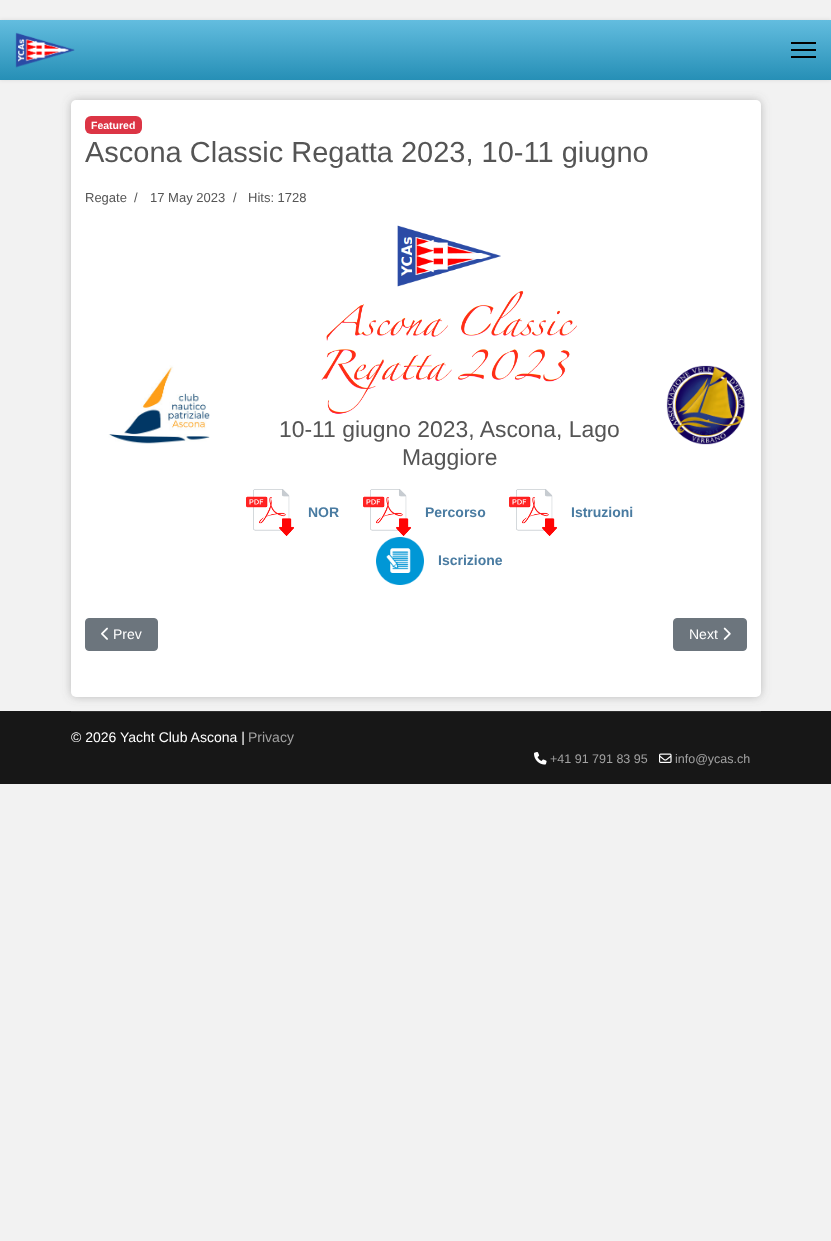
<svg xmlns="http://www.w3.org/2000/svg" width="831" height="1241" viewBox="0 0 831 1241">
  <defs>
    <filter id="blur1" x="-50%" y="-200%" width="200%" height="500%"><feGaussianBlur stdDeviation="2"/></filter>
    <linearGradient id="g1" gradientUnits="userSpaceOnUse" x1="416" y1="20" x2="416" y2="80"><stop offset="0" stop-color="#63bddf"/><stop offset="1" stop-color="#268fb6"/></linearGradient>
    <filter id="blur2" x="-50%" y="-200%" width="200%" height="500%"><feGaussianBlur stdDeviation="5"/></filter>
  </defs>
  <rect width="100%" height="100%" fill="#f2f2f2"/>
  <rect x="0" y="20" width="831" height="60" fill="#000000" fill-opacity="0.1" filter="url(#blur1)"/>
  <rect x="0" y="20" width="831" height="60" fill="url(#g1)"/>
  <image x="15" y="32" width="60" height="36" href="img1.png"/>
  <rect x="791" y="42" width="25" height="2" fill="#000000"/>
  <rect x="791" y="49" width="25" height="2" fill="#000000"/>
  <rect x="791" y="56" width="25" height="2" fill="#000000"/>
  <rect x="0" y="711" width="831" height="73" fill="#171717"/>
  <rect x="71" y="711" width="690" height="1" fill="#2e2e2e"/>
  <rect x="71" y="100" width="690" height="597" rx="5" fill="#666666" fill-opacity="0.4" filter="url(#blur2)"/>
  <rect x="71" y="100" width="690" height="597" rx="5" fill="#ffffff"/>
  <rect x="85" y="116" width="57" height="18" rx="6" fill="#dc3545"/>
  <text x="91" y="129" font-family="Liberation Sans" font-size="10.5" font-weight="bold" fill="#ffffff">Featured</text>
  <text x="85" y="162" font-family="Liberation Sans" font-size="29" fill="#555555">Ascona Classic Regatta 2023, 10-11 giugno</text>
  <text x="85" y="202" font-family="Liberation Sans" font-size="13" fill="#555555">Regate</text>
  <text x="134" y="202" font-family="Liberation Sans" font-size="13" fill="#555555">/</text>
  <text x="150" y="202" font-family="Liberation Sans" font-size="13" fill="#555555">17 May 2023</text>
  <text x="233" y="202" font-family="Liberation Sans" font-size="13" fill="#555555">/</text>
  <text x="248" y="202" font-family="Liberation Sans" font-size="13" fill="#555555">Hits: 1728</text>
  <image x="108" y="365" width="102" height="79" href="img2.png"/>
  <image x="666" y="365" width="80" height="80" href="img3.png"/>
  <image x="397" y="225" width="104" height="62" href="img4.png"/>
  <image x="321" y="291" width="256" height="123" href="img5.png"/>
  <text x="279" y="437" font-family="Liberation Sans" font-size="22.9" fill="#555555">10-11 giugno 2023, Ascona, Lago</text>
  <text x="402" y="465" font-family="Liberation Sans" font-size="22.9" fill="#555555">Maggiore</text>
  <image x="246" y="489" width="48" height="47" href="img6.png"/>
  <text x="308" y="517" font-family="Liberation Sans" font-size="14" font-weight="bold" fill="#497ba1">NOR</text>
  <image x="363" y="489" width="48" height="47" href="img6.png"/>
  <text x="425" y="517" font-family="Liberation Sans" font-size="14" font-weight="bold" fill="#497ba1">Percorso</text>
  <image x="509" y="489" width="48" height="47" href="img6.png"/>
  <text x="571" y="517" font-family="Liberation Sans" font-size="14" font-weight="bold" fill="#497ba1">Istruzioni</text>
  <image x="376" y="537" width="48" height="48" href="img7.png"/>
  <text x="438" y="565" font-family="Liberation Sans" font-size="14" font-weight="bold" fill="#497ba1">Iscrizione</text>
  <rect x="85.5" y="618.5" width="72" height="32" rx="3.5" fill="#6c757d" stroke="#6c757d"/>
  <image x="101" y="627" width="7" height="13" href="img8.png"/>
  <text x="113" y="639" font-family="Liberation Sans" font-size="14" fill="#ffffff">Prev</text>
  <rect x="673.5" y="618.5" width="73" height="32" rx="3.5" fill="#6c757d" stroke="#6c757d"/>
  <text x="689" y="639" font-family="Liberation Sans" font-size="14" fill="#ffffff">Next</text>
  <image x="723" y="627" width="8" height="13" href="img9.png"/>
  <text x="71" y="742" font-family="Liberation Sans" font-size="14" fill="#ffffff">© 2026 Yacht Club Ascona |</text>
  <text x="248" y="742" font-family="Liberation Sans" font-size="14" fill="#a2a2a2">Privacy</text>
  <image x="534" y="752" width="13" height="13" href="img10.png"/>
  <text x="550" y="763" font-family="Liberation Sans" font-size="12.5" fill="#a2a2a2">+41 91 791 83 95</text>
  <image x="659" y="753" width="13" height="10" href="img11.png"/>
  <text x="675" y="763" font-family="Liberation Sans" font-size="12.5" fill="#a2a2a2">info@ycas.ch</text>
</svg>
